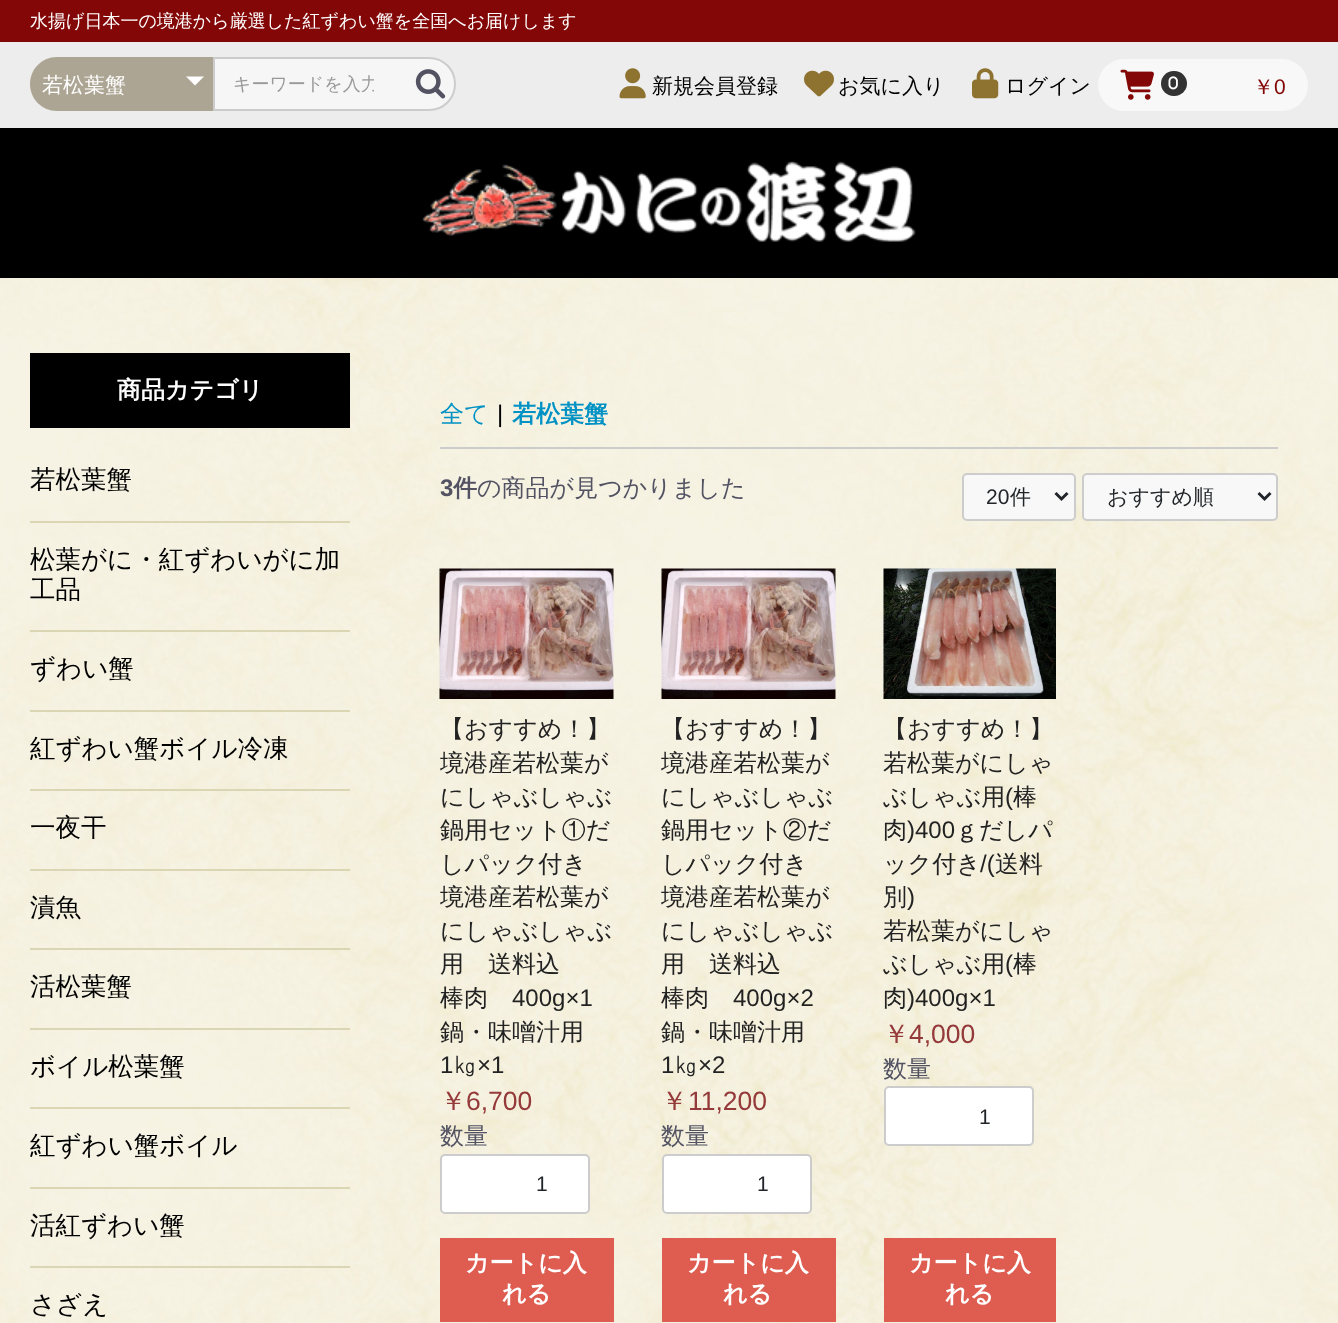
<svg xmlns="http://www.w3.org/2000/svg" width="1338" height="1323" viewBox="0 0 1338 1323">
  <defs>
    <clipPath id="clip1"><rect x="233" y="72" width="141" height="26"/></clipPath>
  </defs>
  <rect width="100%" height="100%" fill="#ffffff"/>
  <image x="0" y="278" width="1338" height="1045" href="img1.png"/>
  <rect x="0" y="0" width="1338" height="42" fill="#830707"/>
  <text x="30" y="27" font-family="WenQuanYi Zen Hei" font-size="18" font-weight="500" fill="#ffffff">水揚げ日本一の境港から厳選した紅ずわい蟹を全国へお届けします</text>
  <rect x="0" y="42" width="1338" height="86" fill="#ededed"/>
  <path d="M57 57H213V111H57C42 111 30 99 30 84C30 69 42 57 57 57Z" fill="#ada593"/>
  <text x="42" y="92" font-family="WenQuanYi Zen Hei" font-size="21" font-weight="500" fill="#ffffff">若松葉蟹</text>
  <path d="M186 76.5H204L195 85.5Z" fill="#ffffff"/>
  <path d="M214 58H429C443.5 58 455 69.5 455 84C455 98.5 443.5 110 429 110H214Z" fill="#f6f6f6" stroke="#cccccc" stroke-width="2"/>
  <g clip-path="url(#clip1)">
    <text x="233" y="90" font-family="WenQuanYi Zen Hei" font-size="18" font-weight="500" fill="#999999">キーワードを入力</text>
  </g>
  <image x="415" y="69" width="31" height="30" href="img2.png"/>
  <image x="619" y="68" width="27" height="31" href="img3.png"/>
  <text x="652" y="93" font-family="WenQuanYi Zen Hei" font-size="21" font-weight="500" fill="#000000">新規会員登録</text>
  <image x="804" y="70" width="30" height="27" href="img4.png"/>
  <text x="838" y="93" font-family="WenQuanYi Zen Hei" font-size="21" font-weight="500" fill="#000000">お気に入り</text>
  <image x="972" y="68" width="27" height="31" href="img5.png"/>
  <text x="1005" y="93" font-family="WenQuanYi Zen Hei" font-size="21" font-weight="500" fill="#000000">ログイン</text>
  <rect x="1098" y="59" width="210" height="52" rx="26" fill="#f8f8f8"/>
  <image x="1120" y="69" width="34" height="31" href="img6.png"/>
  <rect x="1161" y="71" width="26" height="25" rx="12.5" fill="#333333"/>
  <image x="1168" y="76" width="10" height="14" href="img7.png"/>
  <text x="1253" y="94" font-family="WenQuanYi Zen Hei" font-size="21" font-weight="500" fill="#830707">￥</text>
  <text x="1274" y="94" font-family="Liberation Sans" font-size="21" fill="#830707">0</text>
  <rect x="0" y="128" width="1338" height="150" fill="#000000"/>
  <image x="422" y="161" width="494" height="81" href="img8.png"/>
  <rect x="30" y="353" width="320" height="75" fill="#000000"/>
  <text x="117" y="398" font-family="WenQuanYi Zen Hei" font-size="24" font-weight="bold" fill="#ffffff">商品カテゴリ</text>
  <rect x="30" y="521" width="320" height="2" fill="#dad5b3"/>
  <text x="30" y="488" font-family="WenQuanYi Zen Hei" font-size="25.5" font-weight="500" fill="#000000">若松葉蟹</text>
  <rect x="30" y="630" width="320" height="2" fill="#dad5b3"/>
  <text x="30" y="568" font-family="WenQuanYi Zen Hei" font-size="25.5" font-weight="500" fill="#000000">松葉がに・紅ずわいがに加</text>
  <text x="30" y="598" font-family="WenQuanYi Zen Hei" font-size="25.5" font-weight="500" fill="#000000">工品</text>
  <rect x="30" y="710" width="320" height="2" fill="#dad5b3"/>
  <text x="30" y="677" font-family="WenQuanYi Zen Hei" font-size="25.5" font-weight="500" fill="#000000">ずわい蟹</text>
  <rect x="30" y="789" width="320" height="2" fill="#dad5b3"/>
  <text x="30" y="757" font-family="WenQuanYi Zen Hei" font-size="25.5" font-weight="500" fill="#000000">紅ずわい蟹ボイル冷凍</text>
  <rect x="30" y="869" width="320" height="2" fill="#dad5b3"/>
  <text x="30" y="836" font-family="WenQuanYi Zen Hei" font-size="25.5" font-weight="500" fill="#000000">一夜干</text>
  <rect x="30" y="948" width="320" height="2" fill="#dad5b3"/>
  <text x="30" y="916" font-family="WenQuanYi Zen Hei" font-size="25.5" font-weight="500" fill="#000000">漬魚</text>
  <rect x="30" y="1028" width="320" height="2" fill="#dad5b3"/>
  <text x="30" y="995" font-family="WenQuanYi Zen Hei" font-size="25.5" font-weight="500" fill="#000000">活松葉蟹</text>
  <rect x="30" y="1107" width="320" height="2" fill="#dad5b3"/>
  <text x="30" y="1075" font-family="WenQuanYi Zen Hei" font-size="25.5" font-weight="500" fill="#000000">ボイル松葉蟹</text>
  <rect x="30" y="1187" width="320" height="2" fill="#dad5b3"/>
  <text x="30" y="1154" font-family="WenQuanYi Zen Hei" font-size="25.5" font-weight="500" fill="#000000">紅ずわい蟹ボイル</text>
  <rect x="30" y="1266" width="320" height="2" fill="#dad5b3"/>
  <text x="30" y="1234" font-family="WenQuanYi Zen Hei" font-size="25.5" font-weight="500" fill="#000000">活紅ずわい蟹</text>
  <text x="30" y="1313" font-family="WenQuanYi Zen Hei" font-size="25.5" font-weight="500" fill="#000000">さざえ</text>
  <text x="440" y="422" font-family="WenQuanYi Zen Hei" font-size="24" font-weight="500" fill="#0092c4">全て</text>
  <text x="497" y="422" font-family="Liberation Sans" font-size="24" fill="#000000">|</text>
  <text x="512" y="422" font-family="WenQuanYi Zen Hei" font-size="24" font-weight="bold" fill="#0092c4">若松葉蟹</text>
  <rect x="440" y="447" width="838" height="2" fill="#cccccc"/>
  <text x="440" y="496" font-family="Liberation Sans" font-size="24" font-weight="bold" fill="#525263">3</text>
  <text x="453" y="496" font-family="WenQuanYi Zen Hei" font-size="24" font-weight="bold" fill="#525263">件</text>
  <text x="477" y="496" font-family="WenQuanYi Zen Hei" font-size="24" font-weight="500" fill="#525263">の商品が見つかりました</text>
  <rect x="963" y="474" width="112" height="46" rx="4" fill="#f8f8f8" stroke="#cccccc" stroke-width="2"/>
  <path d="M1055.5 493L1061.5 499L1067.5 493" fill="none" stroke="#212529" stroke-width="3"/>
  <text x="986" y="504" font-family="Liberation Sans" font-size="21" fill="#212529">20</text>
  <text x="1010" y="504" font-family="WenQuanYi Zen Hei" font-size="21" font-weight="500" fill="#212529">件</text>
  <rect x="1083" y="474" width="194" height="46" rx="4" fill="#f8f8f8" stroke="#cccccc" stroke-width="2"/>
  <path d="M1258.5 493L1264.5 499L1270.5 493" fill="none" stroke="#212529" stroke-width="3"/>
  <text x="1107" y="504" font-family="WenQuanYi Zen Hei" font-size="21" font-weight="500" fill="#212529">おすすめ順</text>
  <image x="439" y="568" width="175" height="131" href="img9.png"/>
  <text x="440" y="737" font-family="WenQuanYi Zen Hei" font-size="24" font-weight="500" fill="#222222">【おすすめ！】</text>
  <text x="440" y="771" font-family="WenQuanYi Zen Hei" font-size="24" font-weight="500" fill="#222222">境港産若松葉が</text>
  <text x="440" y="805" font-family="WenQuanYi Zen Hei" font-size="24" font-weight="500" fill="#222222">にしゃぶしゃぶ</text>
  <text x="440" y="838" font-family="WenQuanYi Zen Hei" font-size="24" font-weight="500" fill="#222222">鍋用セット①だ</text>
  <text x="440" y="872" font-family="WenQuanYi Zen Hei" font-size="24" font-weight="500" fill="#222222">しパック付き</text>
  <text x="440" y="905" font-family="WenQuanYi Zen Hei" font-size="24" font-weight="500" fill="#222222">境港産若松葉が</text>
  <text x="440" y="939" font-family="WenQuanYi Zen Hei" font-size="24" font-weight="500" fill="#222222">にしゃぶしゃぶ</text>
  <text x="440" y="972" font-family="WenQuanYi Zen Hei" font-size="24" font-weight="500" fill="#222222">用　送料込</text>
  <text x="440" y="1006" font-family="WenQuanYi Zen Hei" font-size="24" font-weight="500" fill="#222222">棒肉</text>
  <text x="512" y="1006" font-family="Liberation Sans" font-size="24" fill="#222222">400g×1</text>
  <text x="440" y="1040" font-family="WenQuanYi Zen Hei" font-size="24" font-weight="500" fill="#222222">鍋・味噌汁用</text>
  <text x="440" y="1073" font-family="Liberation Sans" font-size="24" fill="#222222">1</text>
  <text x="453" y="1073" font-family="WenQuanYi Zen Hei" font-size="24" font-weight="500" fill="#222222">㎏</text>
  <text x="477" y="1073" font-family="Liberation Sans" font-size="24" fill="#222222">×1</text>
  <text x="440" y="1110" font-family="WenQuanYi Zen Hei" font-size="26.5" font-weight="500" fill="#953a3a">￥</text>
  <text x="466" y="1110" font-family="Liberation Sans" font-size="26.5" fill="#953a3a">6,700</text>
  <text x="440" y="1144" font-family="WenQuanYi Zen Hei" font-size="24" font-weight="500" fill="#525263">数量</text>
  <rect x="441" y="1155" width="148" height="58" rx="4" fill="#ffffff" stroke="#cccccc" stroke-width="2"/>
  <text x="536" y="1191" font-family="Liberation Sans" font-size="21" fill="#212529">1</text>
  <rect x="440" y="1238" width="174" height="84" fill="#de5d50"/>
  <text x="465" y="1271" font-family="WenQuanYi Zen Hei" font-size="24" font-weight="bold" fill="#ffffff">カートに入</text>
  <text x="502" y="1302" font-family="WenQuanYi Zen Hei" font-size="24" font-weight="bold" fill="#ffffff">れる</text>
  <image x="661" y="568" width="175" height="131" href="img10.png"/>
  <text x="661" y="737" font-family="WenQuanYi Zen Hei" font-size="24" font-weight="500" fill="#222222">【おすすめ！】</text>
  <text x="661" y="771" font-family="WenQuanYi Zen Hei" font-size="24" font-weight="500" fill="#222222">境港産若松葉が</text>
  <text x="661" y="805" font-family="WenQuanYi Zen Hei" font-size="24" font-weight="500" fill="#222222">にしゃぶしゃぶ</text>
  <text x="661" y="838" font-family="WenQuanYi Zen Hei" font-size="24" font-weight="500" fill="#222222">鍋用セット②だ</text>
  <text x="661" y="872" font-family="WenQuanYi Zen Hei" font-size="24" font-weight="500" fill="#222222">しパック付き</text>
  <text x="661" y="905" font-family="WenQuanYi Zen Hei" font-size="24" font-weight="500" fill="#222222">境港産若松葉が</text>
  <text x="661" y="939" font-family="WenQuanYi Zen Hei" font-size="24" font-weight="500" fill="#222222">にしゃぶしゃぶ</text>
  <text x="661" y="972" font-family="WenQuanYi Zen Hei" font-size="24" font-weight="500" fill="#222222">用　送料込</text>
  <text x="661" y="1006" font-family="WenQuanYi Zen Hei" font-size="24" font-weight="500" fill="#222222">棒肉</text>
  <text x="733" y="1006" font-family="Liberation Sans" font-size="24" fill="#222222">400g×2</text>
  <text x="661" y="1040" font-family="WenQuanYi Zen Hei" font-size="24" font-weight="500" fill="#222222">鍋・味噌汁用</text>
  <text x="661" y="1073" font-family="Liberation Sans" font-size="24" fill="#222222">1</text>
  <text x="674" y="1073" font-family="WenQuanYi Zen Hei" font-size="24" font-weight="500" fill="#222222">㎏</text>
  <text x="698" y="1073" font-family="Liberation Sans" font-size="24" fill="#222222">×2</text>
  <text x="661" y="1110" font-family="WenQuanYi Zen Hei" font-size="26.5" font-weight="500" fill="#953a3a">￥</text>
  <text x="688" y="1110" font-family="Liberation Sans" font-size="26.5" fill="#953a3a">11,200</text>
  <text x="661" y="1144" font-family="WenQuanYi Zen Hei" font-size="24" font-weight="500" fill="#525263">数量</text>
  <rect x="663" y="1155" width="148" height="58" rx="4" fill="#ffffff" stroke="#cccccc" stroke-width="2"/>
  <text x="757" y="1191" font-family="Liberation Sans" font-size="21" fill="#212529">1</text>
  <rect x="662" y="1238" width="174" height="84" fill="#de5d50"/>
  <text x="687" y="1271" font-family="WenQuanYi Zen Hei" font-size="24" font-weight="bold" fill="#ffffff">カートに入</text>
  <text x="723" y="1302" font-family="WenQuanYi Zen Hei" font-size="24" font-weight="bold" fill="#ffffff">れる</text>
  <image x="883" y="568" width="173" height="131" href="img11.png"/>
  <text x="883" y="737" font-family="WenQuanYi Zen Hei" font-size="24" font-weight="500" fill="#222222">【おすすめ！】</text>
  <text x="883" y="771" font-family="WenQuanYi Zen Hei" font-size="24" font-weight="500" fill="#222222">若松葉がにしゃ</text>
  <text x="883" y="805" font-family="WenQuanYi Zen Hei" font-size="24" font-weight="500" fill="#222222">ぶしゃぶ用</text>
  <text x="1005" y="805" font-family="Liberation Sans" font-size="24" fill="#222222">(</text>
  <text x="1013" y="805" font-family="WenQuanYi Zen Hei" font-size="24" font-weight="500" fill="#222222">棒</text>
  <text x="883" y="838" font-family="WenQuanYi Zen Hei" font-size="24" font-weight="500" fill="#222222">肉</text>
  <text x="907" y="838" font-family="Liberation Sans" font-size="24" fill="#222222">)400</text>
  <text x="955" y="838" font-family="WenQuanYi Zen Hei" font-size="24" font-weight="500" fill="#222222">ｇだしパ</text>
  <text x="883" y="872" font-family="WenQuanYi Zen Hei" font-size="24" font-weight="500" fill="#222222">ック付き</text>
  <text x="980" y="872" font-family="Liberation Sans" font-size="24" fill="#222222">/(</text>
  <text x="995" y="872" font-family="WenQuanYi Zen Hei" font-size="24" font-weight="500" fill="#222222">送料</text>
  <text x="883" y="905" font-family="WenQuanYi Zen Hei" font-size="24" font-weight="500" fill="#222222">別</text>
  <text x="907" y="905" font-family="Liberation Sans" font-size="24" fill="#222222">)</text>
  <text x="883" y="939" font-family="WenQuanYi Zen Hei" font-size="24" font-weight="500" fill="#222222">若松葉がにしゃ</text>
  <text x="883" y="972" font-family="WenQuanYi Zen Hei" font-size="24" font-weight="500" fill="#222222">ぶしゃぶ用</text>
  <text x="1005" y="972" font-family="Liberation Sans" font-size="24" fill="#222222">(</text>
  <text x="1013" y="972" font-family="WenQuanYi Zen Hei" font-size="24" font-weight="500" fill="#222222">棒</text>
  <text x="883" y="1006" font-family="WenQuanYi Zen Hei" font-size="24" font-weight="500" fill="#222222">肉</text>
  <text x="907" y="1006" font-family="Liberation Sans" font-size="24" fill="#222222">)400g×1</text>
  <text x="883" y="1043" font-family="WenQuanYi Zen Hei" font-size="26.5" font-weight="500" fill="#953a3a">￥</text>
  <text x="909" y="1043" font-family="Liberation Sans" font-size="26.5" fill="#953a3a">4,000</text>
  <text x="883" y="1077" font-family="WenQuanYi Zen Hei" font-size="24" font-weight="500" fill="#525263">数量</text>
  <rect x="885" y="1087" width="148" height="58" rx="4" fill="#ffffff" stroke="#cccccc" stroke-width="2"/>
  <text x="979" y="1124" font-family="Liberation Sans" font-size="21" fill="#212529">1</text>
  <rect x="884" y="1238" width="172" height="84" fill="#de5d50"/>
  <text x="909" y="1271" font-family="WenQuanYi Zen Hei" font-size="24" font-weight="bold" fill="#ffffff">カートに入</text>
  <text x="945" y="1302" font-family="WenQuanYi Zen Hei" font-size="24" font-weight="bold" fill="#ffffff">れる</text>
</svg>
